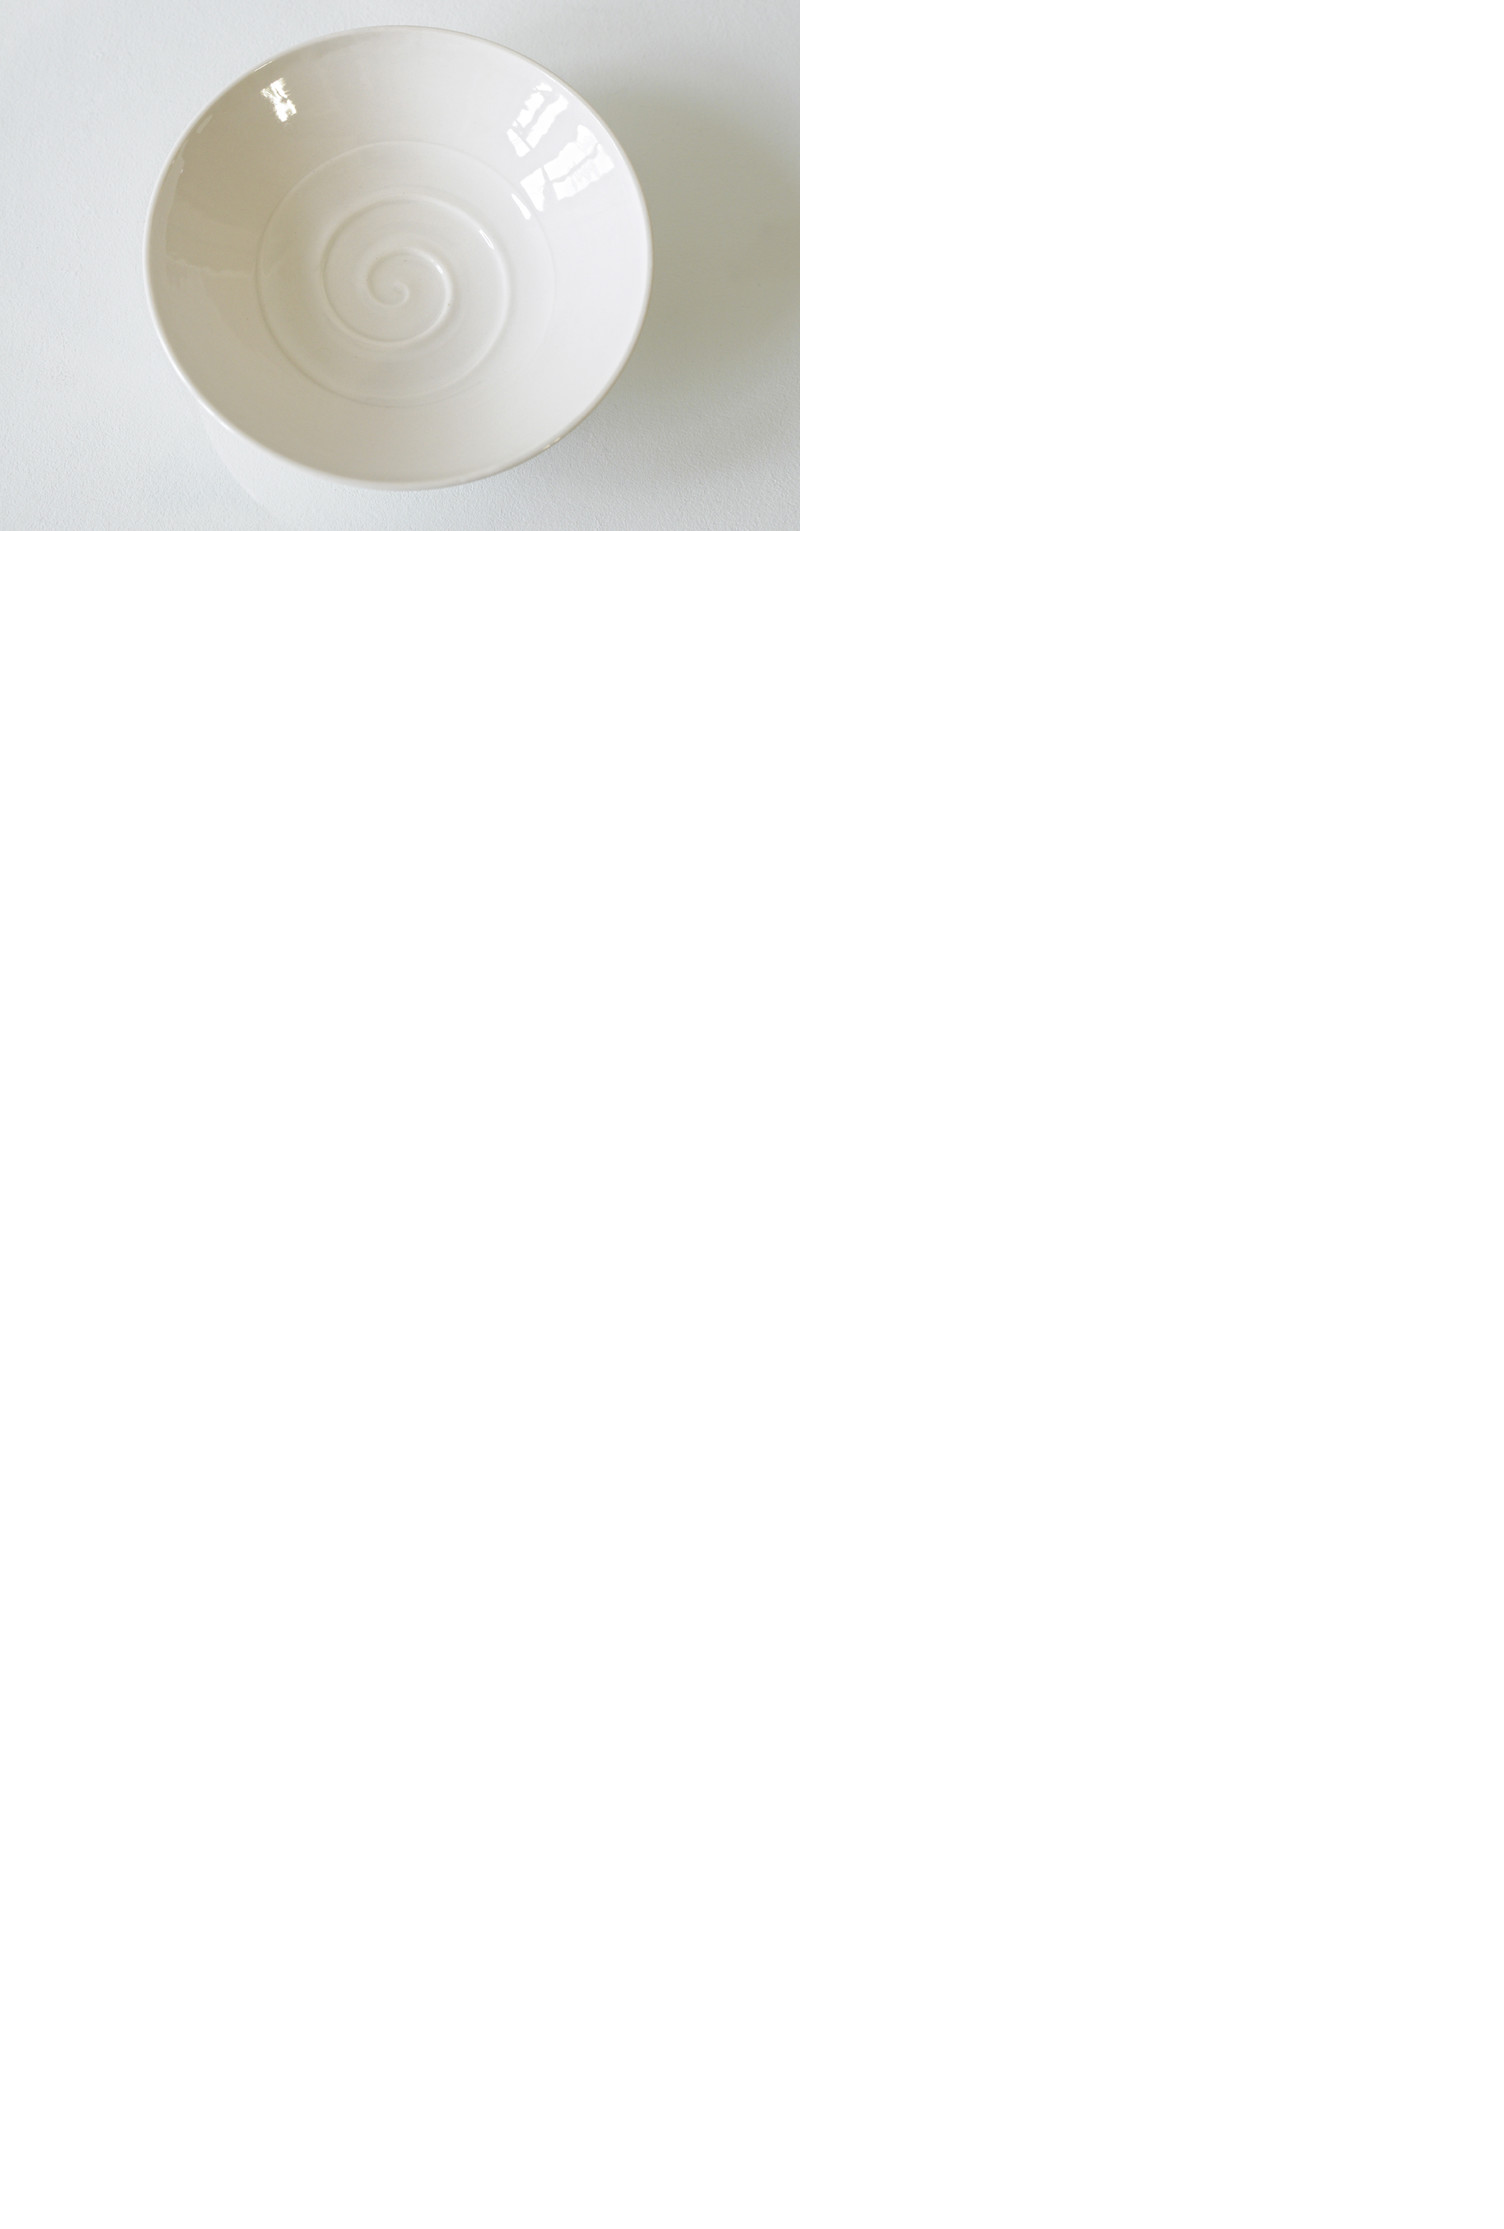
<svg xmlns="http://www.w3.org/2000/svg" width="1504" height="2229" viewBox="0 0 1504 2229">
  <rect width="100%" height="100%" fill="#ffffff"/>
  <image x="0" y="0" width="800" height="531" href="img1.png"/>
</svg>
